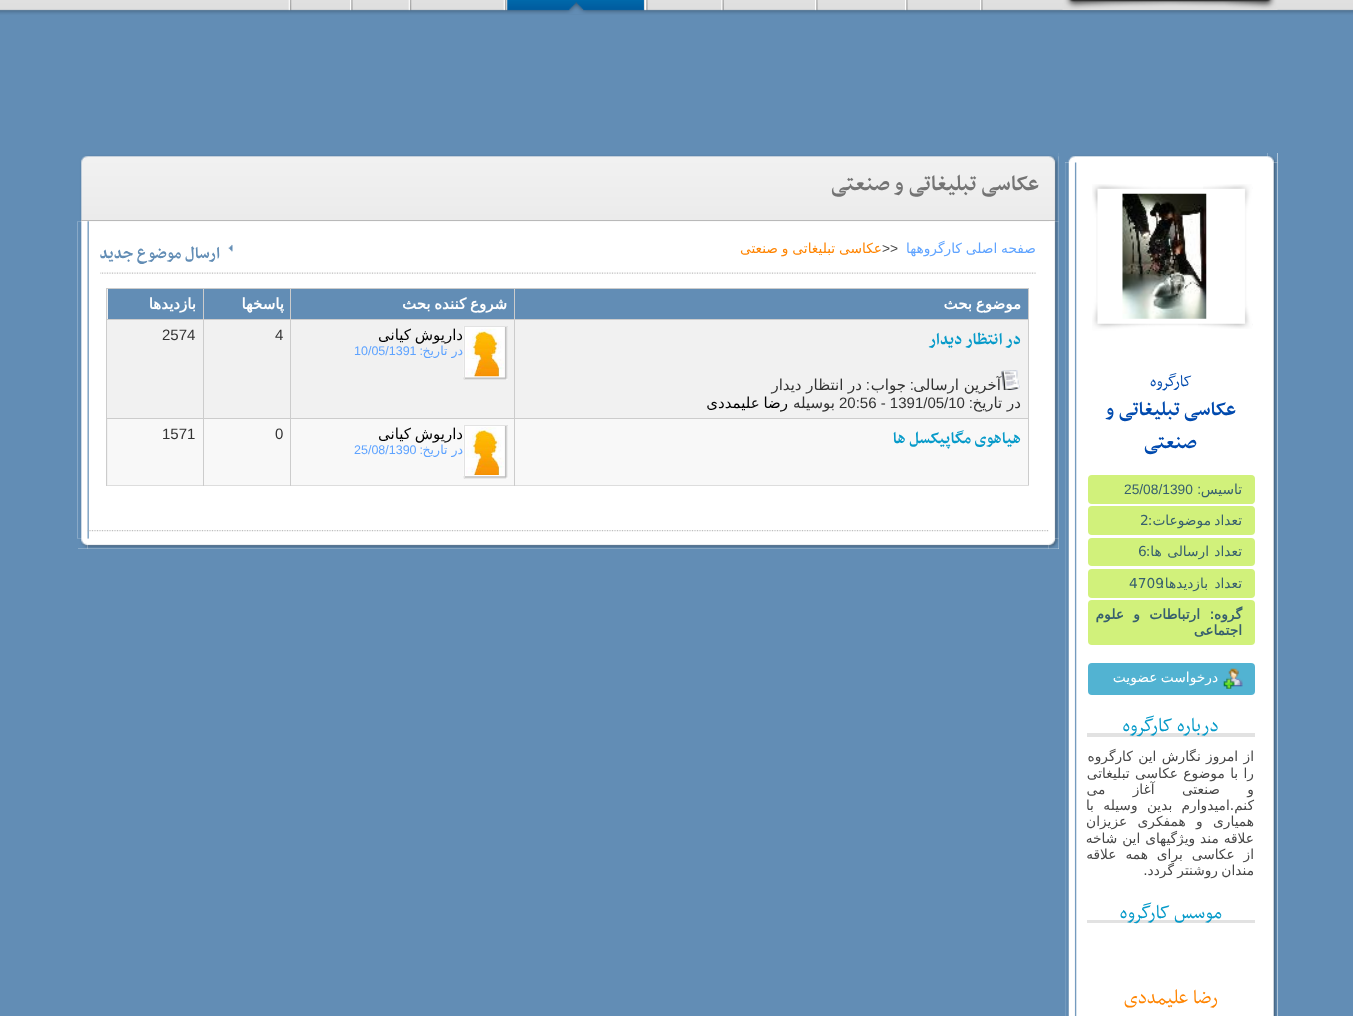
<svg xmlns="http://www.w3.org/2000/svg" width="1353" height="1016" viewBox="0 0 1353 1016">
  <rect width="100%" height="100%" fill="#628db5"/>
  <image x="0" y="0" width="1353" height="15" href="img1.png"/>
  <image x="1062" y="0" width="216" height="10" href="img2.png"/>
  <image x="980" y="0" width="3" height="11" href="img3.png"/>
  <image x="905" y="0" width="3" height="11" href="img3.png"/>
  <image x="815" y="0" width="3" height="11" href="img3.png"/>
  <image x="721" y="0" width="3" height="11" href="img4.png"/>
  <image x="645" y="0" width="3" height="11" href="img3.png"/>
  <image x="507" y="0" width="137" height="14" href="img5.png"/>
  <image x="643" y="0" width="1" height="11" href="img6.png"/>
  <image x="507" y="0" width="1" height="11" href="img7.png"/>
  <image x="503" y="0" width="4" height="11" href="img8.png"/>
  <image x="408" y="0" width="4" height="11" href="img8.png"/>
  <image x="350" y="0" width="3" height="11" href="img3.png"/>
  <image x="288" y="0" width="4" height="11" href="img8.png"/>
  <rect x="78" y="153" width="981" height="396" fill="#ffffff"/>
  <image x="78" y="153" width="981" height="69" href="img9.png"/>
  <image x="1049" y="153" width="10" height="69" href="img10.png"/>
  <rect x="81" y="220" width="974" height="1" fill="#b9b9b9"/>
  <text x="1039" y="190" font-family="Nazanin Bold" font-size="25" font-weight="bold" direction="rtl" fill="#747474">عکاسی تبلیغاتی و صنعتی</text>
  <image x="77" y="221" width="12" height="318" href="img11.png"/>
  <image x="1049" y="221" width="10" height="318" href="img12.png"/>
  <text x="1036" y="253" word-spacing="-0.5" font-family="DejaVu Sans" font-size="13.75" direction="rtl" fill="#5ea3ff">صفحه اصلی کارگروهها</text>
  <text x="882" y="253" font-family="Liberation Sans" font-size="13.75" fill="#474747">&gt;&gt;</text>
  <text x="882" y="253" word-spacing="-0.5" font-family="DejaVu Sans" font-size="13.75" direction="rtl" fill="#ff8400">عکاسی تبلیغاتی و صنعتی</text>
  <image x="228" y="244" width="5" height="8" href="img13.png"/>
  <text x="220" y="258" font-family="Nazanin Bold" font-size="18.75" font-weight="bold" direction="rtl" fill="#628db5">ارسال موضوع جديد</text>
  <image x="100" y="272" width="936" height="2" href="img14.png"/>
  <rect x="107" y="289" width="921" height="196" fill="#f1f1f1"/>
  <rect x="106" y="288" width="923" height="1" fill="#cccccc"/>
  <rect x="1028" y="288" width="1" height="130" fill="#cccccc"/>
  <rect x="106" y="288" width="1" height="130" fill="#cccccc"/>
  <rect x="515" y="289" width="513" height="30" fill="#628db5"/>
  <text x="1021" y="309" word-spacing="-1" font-family="DejaVu Sans" font-size="15" font-weight="bold" direction="rtl" fill="#ffffff">موضوع بحث</text>
  <rect x="291" y="289" width="223" height="30" fill="#628db5"/>
  <rect x="106" y="319" width="98" height="1" fill="#cccccc"/>
  <rect x="108" y="419" width="920" height="66" fill="#f8f8f8"/>
  <rect x="106" y="418" width="923" height="1" fill="#cccccc"/>
  <rect x="106" y="485" width="409" height="1" fill="#dddddd"/>
  <rect x="203" y="418" width="1" height="68" fill="#cccccc"/>
  <rect x="203" y="319" width="1" height="100" fill="#cccccc"/>
  <rect x="203" y="319" width="88" height="1" fill="#cccccc"/>
  <rect x="290" y="418" width="1" height="68" fill="#cccccc"/>
  <rect x="290" y="319" width="1" height="100" fill="#cccccc"/>
  <rect x="290" y="319" width="225" height="1" fill="#cccccc"/>
  <rect x="1028" y="418" width="1" height="68" fill="#cccccc"/>
  <rect x="514" y="485" width="515" height="1" fill="#dddddd"/>
  <rect x="514" y="418" width="1" height="68" fill="#cccccc"/>
  <rect x="514" y="319" width="1" height="100" fill="#cccccc"/>
  <rect x="514" y="319" width="515" height="1" fill="#cccccc"/>
  <rect x="514" y="288" width="1" height="32" fill="#cccccc"/>
  <text x="507" y="309" word-spacing="-1" font-family="DejaVu Sans" font-size="15" font-weight="bold" direction="rtl" fill="#ffffff">شروع کننده بحث</text>
  <rect x="204" y="289" width="86" height="30" fill="#628db5"/>
  <rect x="290" y="288" width="1" height="32" fill="#cccccc"/>
  <text x="284" y="309" font-family="DejaVu Sans" font-size="15" font-weight="bold" direction="rtl" fill="#ffffff">پاسخها</text>
  <rect x="108" y="289" width="95" height="30" fill="#628db5"/>
  <rect x="203" y="288" width="1" height="32" fill="#cccccc"/>
  <text x="196" y="309" font-family="DejaVu Sans" font-size="15" font-weight="bold" direction="rtl" fill="#ffffff">بازدیدها</text>
  <text x="1021" y="344" font-family="Nazanin Bold" font-size="18.75" font-weight="bold" direction="rtl" fill="#069ac9">در انتظار دیدار</text>
  <image x="1001" y="370" width="19" height="20" href="img15.png"/>
  <text x="1001" y="390" font-family="DejaVu Sans" font-size="15" direction="rtl" fill="#333333">آخرین ارسالی</text>
  <text x="914" y="390" font-family="Liberation Sans" font-size="15" direction="rtl" fill="#333333">:</text>
  <text x="906" y="390" font-family="DejaVu Sans" font-size="15" direction="rtl" fill="#333333">جواب</text>
  <text x="870" y="390" font-family="Liberation Sans" font-size="15" direction="rtl" fill="#333333">:</text>
  <text x="862" y="390" font-family="DejaVu Sans" font-size="15" direction="rtl" fill="#333333">در انتظار دیدار</text>
  <text x="1021" y="408" font-family="DejaVu Sans" font-size="15" direction="rtl" fill="#333333">در تاریخ</text>
  <text x="973" y="408" font-family="Liberation Sans" font-size="15" direction="rtl" fill="#333333">:</text>
  <text x="839" y="408" font-family="Liberation Sans" font-size="15" fill="#333333">20:56 - 1391/05/10</text>
  <text x="835" y="408" font-family="DejaVu Sans" font-size="15" direction="rtl" fill="#333333">بوسيله</text>
  <text x="788" y="408" word-spacing="-1" font-family="DejaVu Sans" font-size="15" direction="rtl" fill="#000000">رضا علیمددی</text>
  <image x="463" y="326" width="45" height="54" href="img16.png"/>
  <rect x="464" y="326" width="44" height="1" fill="#e2e2e2"/>
  <rect x="464" y="326" width="1" height="54" fill="#e2e2e2"/>
  <image x="466" y="328" width="38" height="49" href="img17.png"/>
  <text x="463" y="340" word-spacing="-1" font-family="DejaVu Sans" font-size="15" direction="rtl" fill="#000000">داریوش کیانی</text>
  <text x="463" y="355" font-family="DejaVu Sans" font-size="12.5" direction="rtl" fill="#5ea3ff">در تاریخ</text>
  <text x="423" y="355" font-family="Liberation Sans" font-size="12.5" direction="rtl" fill="#5ea3ff">:</text>
  <text x="354" y="355" font-family="Liberation Sans" font-size="12.5" fill="#5ea3ff">10/05/1391</text>
  <text x="275" y="340" font-family="Liberation Sans" font-size="15" fill="#333333">4</text>
  <text x="162" y="340" font-family="Liberation Sans" font-size="15" fill="#333333">2574</text>
  <text x="1021" y="443" font-family="Nazanin Bold" font-size="18.75" font-weight="bold" direction="rtl" fill="#069ac9">هیاهوی مگاپیکسل ها</text>
  <image x="463" y="425" width="45" height="54" href="img18.png"/>
  <rect x="464" y="425" width="44" height="1" fill="#e2e2e2"/>
  <rect x="464" y="425" width="1" height="54" fill="#e2e2e2"/>
  <image x="466" y="427" width="38" height="48" href="img19.png"/>
  <text x="463" y="439" word-spacing="-1" font-family="DejaVu Sans" font-size="15" direction="rtl" fill="#000000">داریوش کیانی</text>
  <text x="463" y="454" font-family="DejaVu Sans" font-size="12.5" direction="rtl" fill="#5ea3ff">در تاریخ</text>
  <text x="423" y="454" font-family="Liberation Sans" font-size="12.5" direction="rtl" fill="#5ea3ff">:</text>
  <text x="354" y="454" font-family="Liberation Sans" font-size="12.5" fill="#5ea3ff">25/08/1390</text>
  <text x="275" y="439" font-family="Liberation Sans" font-size="15" fill="#333333">0</text>
  <rect x="106" y="418" width="1" height="68" fill="#cccccc"/>
  <text x="162" y="439" font-family="Liberation Sans" font-size="15" fill="#333333">1571</text>
  <image x="87" y="530" width="962" height="2" href="img20.png"/>
  <image x="78" y="538" width="10" height="11" href="img23.png"/>
  <image x="87" y="538" width="962" height="11" href="img22.png"/>
  <image x="1048" y="538" width="11" height="11" href="img21.png"/>
  <rect x="1065" y="153" width="213" height="863" fill="#ffffff"/>
  <image x="1075" y="153" width="193" height="4" href="img25.png"/>
  <image x="1267" y="153" width="11" height="10" href="img24.png"/>
  <image x="1065" y="153" width="10" height="10" href="img26.png"/>
  <image x="1065" y="162" width="12" height="854" href="img27.png"/>
  <image x="1273" y="162" width="5" height="854" href="img28.png"/>
  <image x="1092" y="184" width="161" height="147" href="img29.png"/>
  <image x="1203" y="184" width="49" height="110" href="img30.png"/>
  <image x="1092" y="294" width="161" height="37" href="img31.png"/>
  <image x="1198" y="294" width="54" height="35" href="img32.png"/>
  <image x="1122" y="193" width="85" height="126" href="img33.png"/>
  <text x="1192" y="386" font-family="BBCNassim" font-size="18.75" direction="rtl" fill="#004aae">کارگروه</text>
  <text x="1236" y="415" font-family="Nazanin Bold" font-size="22.5" font-weight="bold" direction="rtl" fill="#004aae">عکاسی تبلیغاتی و</text>
  <text x="1197" y="448" font-family="Nazanin Bold" font-size="22.5" font-weight="bold" direction="rtl" fill="#004aae">صنعتی</text>
  <rect x="1088" y="475" width="167" height="29" rx="4" fill="#d1f17b"/>
  <text x="1242" y="494" font-family="DejaVu Sans" font-size="13.75" direction="rtl" fill="#375f6e">تاسیس</text>
  <text x="1201" y="494" font-family="Liberation Sans" font-size="13.75" direction="rtl" fill="#375f6e">:</text>
  <text x="1124" y="494" font-family="Liberation Sans" font-size="13.75" fill="#375f6e">25/08/1390</text>
  <rect x="1088" y="506" width="167" height="29" rx="4" fill="#d1f17b"/>
  <text x="1242" y="525" word-spacing="-1" font-family="DejaVu Sans" font-size="13.75" direction="rtl" fill="#375f6e">تعداد موضوعات:</text>
  <text x="1140" y="525" font-family="DejaVu Sans" font-size="13.75" fill="#375f6e">2</text>
  <rect x="1088" y="538" width="167" height="28" rx="4" fill="#d1f17b"/>
  <text x="1242" y="556" word-spacing="1" font-family="DejaVu Sans" font-size="13.75" direction="rtl" fill="#375f6e">تعداد ارسالی ها:</text>
  <text x="1138" y="556" font-family="DejaVu Sans" font-size="13.75" fill="#375f6e">6</text>
  <rect x="1088" y="569" width="167" height="29" rx="4" fill="#d1f17b"/>
  <text x="1129" y="588" font-family="DejaVu Sans" font-size="13.75" fill="#375f6e">4709</text>
  <text x="1242" y="588" word-spacing="2" font-family="DejaVu Sans" font-size="13.75" direction="rtl" fill="#375f6e">تعداد بازدیدها:</text>
  <rect x="1088" y="600" width="167" height="45" rx="4" fill="#d1f17b"/>
  <text x="1242" y="619" font-family="DejaVu Sans" font-size="13.75" font-weight="bold" direction="rtl" fill="#375f6e">گروه:</text>
  <text x="1200" y="619" word-spacing="5" font-family="DejaVu Sans" font-size="13.75" font-weight="bold" direction="rtl" fill="#375f6e">ارتباطات و علوم</text>
  <text x="1242" y="635" font-family="DejaVu Sans" font-size="13.75" font-weight="bold" direction="rtl" fill="#375f6e">اجتماعی</text>
  <rect x="1088" y="663" width="167" height="32" rx="4" fill="#52b3d2"/>
  <image x="1223" y="668" width="20" height="21" href="img34.png"/>
  <text x="1218" y="682" word-spacing="-1" font-family="DejaVu Sans" font-size="13.75" direction="rtl" fill="#ffffff">درخواست عضویت</text>
  <rect x="1087" y="733" width="168" height="4" fill="#e2e2e2"/>
  <text x="1219" y="731" font-family="BBCNassim" font-size="22.5" direction="rtl" fill="#069ac9">درباره کارگروه</text>
  <text x="1254" y="761" word-spacing="1" font-family="DejaVu Sans" font-size="13.75" direction="rtl" fill="#474747">از امروز نگارش این کارگروه</text>
  <text x="1254" y="778" word-spacing="1" font-family="DejaVu Sans" font-size="13.75" direction="rtl" fill="#474747">را با موضوع عکاسی تبلیغاتی</text>
  <text x="1254" y="794" word-spacing="23" font-family="DejaVu Sans" font-size="13.75" direction="rtl" fill="#474747">و صنعتی آغاز می</text>
  <text x="1254" y="810" word-spacing="5" font-family="DejaVu Sans" font-size="13.75" direction="rtl" fill="#474747">کنم.امیدوارم بدین وسیله با</text>
  <text x="1254" y="826" word-spacing="6" font-family="DejaVu Sans" font-size="13.75" direction="rtl" fill="#474747">همیاری و همفکری عزیزان</text>
  <text x="1254" y="843" word-spacing="0.5" font-family="DejaVu Sans" font-size="13.75" direction="rtl" fill="#474747">علاقه مند ویژگیهای این شاخه</text>
  <text x="1254" y="859" word-spacing="4.5" font-family="DejaVu Sans" font-size="13.75" direction="rtl" fill="#474747">از عکاسی برای همه علاقه</text>
  <text x="1254" y="875" word-spacing="-1" font-family="DejaVu Sans" font-size="13.75" direction="rtl" fill="#474747">مندان روشنتر گردد.</text>
  <rect x="1087" y="920" width="168" height="3" fill="#e2e2e2"/>
  <text x="1222" y="918" font-family="BBCNassim" font-size="22.5" direction="rtl" fill="#069ac9">موسس کارگروه</text>
  <text x="1218" y="1003" font-family="BBCNassim" font-size="22.5" direction="rtl" fill="#ff8400">رضا علیمددی</text>
</svg>
